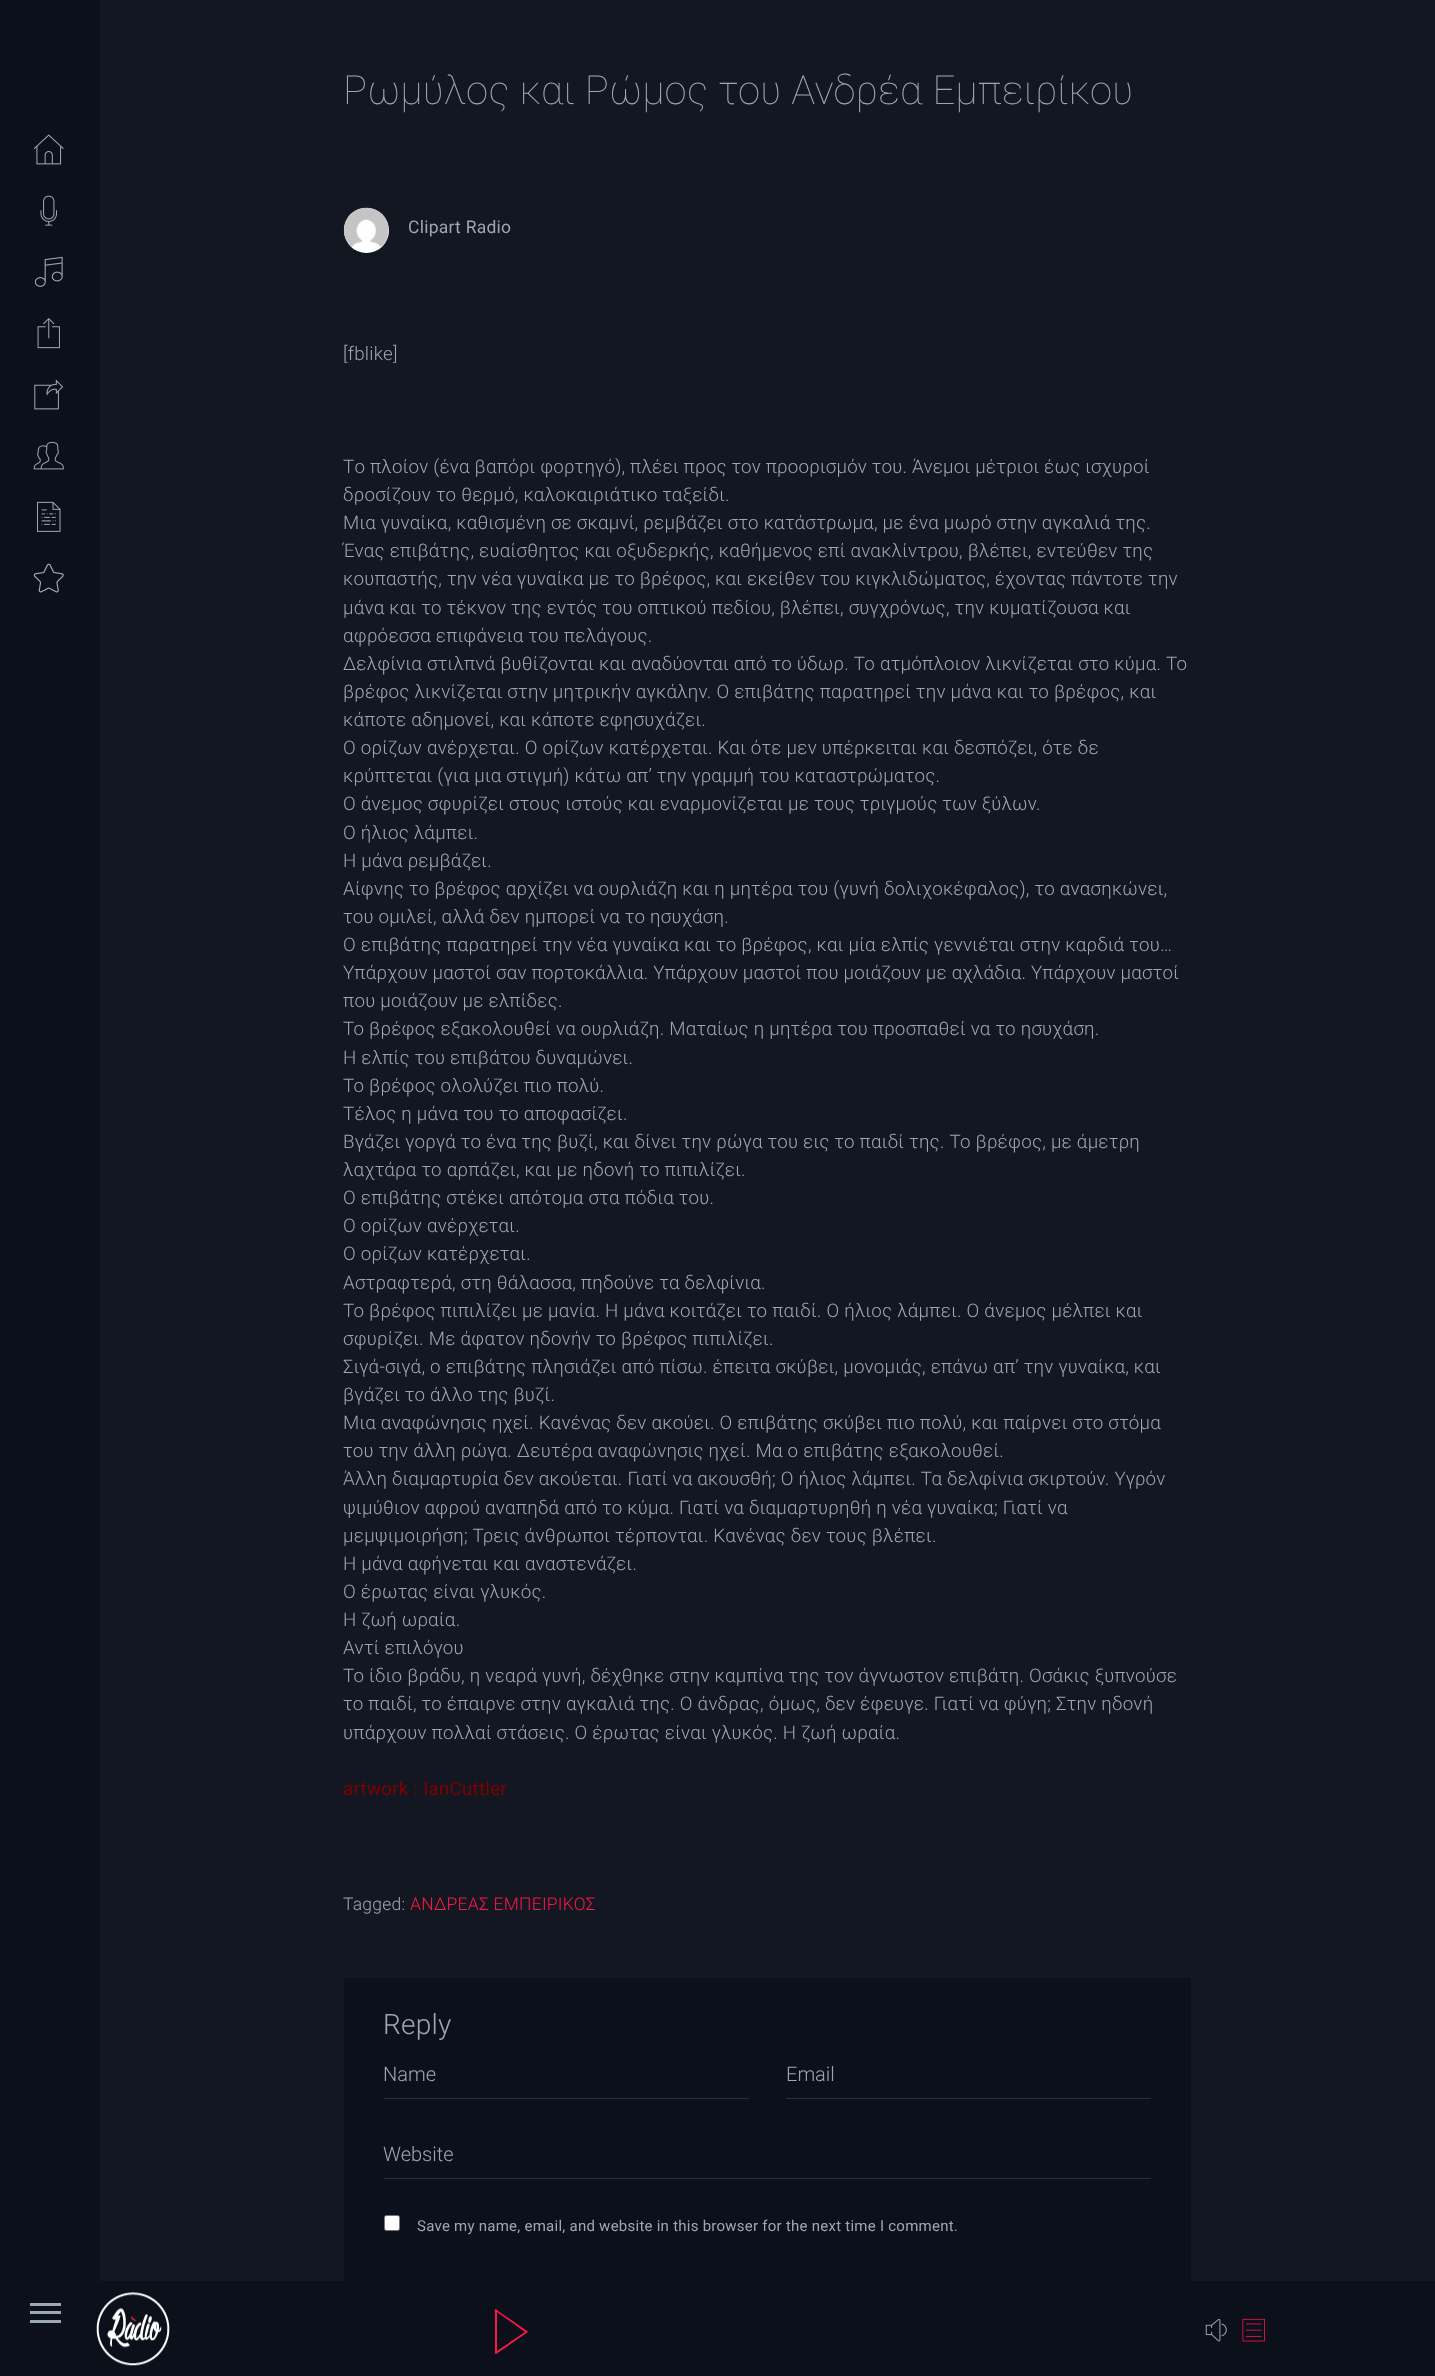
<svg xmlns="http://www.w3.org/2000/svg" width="1435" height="2376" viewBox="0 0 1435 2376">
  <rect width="100%" height="100%" fill="#131722"/>
  <rect x="0" y="0" width="100" height="2281" fill="#0c101b"/>
  <image x="33" y="134" width="31" height="31" href="img1.png"/>
  <image x="40" y="195" width="17" height="31" href="img2.png"/>
  <image x="34" y="256" width="29" height="31" href="img3.png"/>
  <image x="37" y="318" width="23" height="31" href="img4.png"/>
  <image x="34" y="379" width="30" height="31" href="img5.png"/>
  <image x="33" y="441" width="31" height="29" href="img6.png"/>
  <image x="37" y="501" width="24" height="31" href="img7.png"/>
  <image x="33" y="563" width="31" height="30" href="img8.png"/>
  <text x="343" y="104" font-family="Roboto" font-size="40" font-weight="100" letter-spacing="0.25" fill="#9ca8b0">Ρωμύλος και Ρώμος του Ανδρέα Εμπειρίκου</text>
  <circle cx="366.5" cy="230.5" r="22.5" fill="#ffffff"/>
  <image x="343" y="207" width="46" height="44" href="img9.png"/>
  <text x="408" y="233" font-family="Roboto" font-size="17.5" letter-spacing="0.25" fill="#9ca8b0">Clipart Radio</text>
  <text x="343" y="360" font-family="Roboto" font-size="18.75" font-weight="300" letter-spacing="0.25" fill="#9ca8b0">[fblike]</text>
  <text x="343" y="473" word-spacing="-0.1" font-family="Roboto" font-size="18.75" font-weight="300" letter-spacing="0.25" fill="#9ca8b0">Tο πλοίον (ένα βαπόρι φορτηγό), πλέει προς τον προορισμόν του. Άνεμοι μέτριοι έως ισχυροί</text>
  <text x="343" y="501" font-family="Roboto" font-size="18.75" font-weight="300" letter-spacing="0.25" fill="#9ca8b0">δροσίζουν το θερμό, καλοκαιριάτικο ταξείδι.</text>
  <text x="343" y="529" font-family="Roboto" font-size="18.75" font-weight="300" letter-spacing="0.25" fill="#9ca8b0">Μια γυναίκα, καθισμένη σε σκαμνί, ρεμβάζει στο κατάστρωμα, με ένα μωρό στην αγκαλιά της.</text>
  <text x="343" y="557" font-family="Roboto" font-size="18.75" font-weight="300" letter-spacing="0.25" fill="#9ca8b0">Ένας επιβάτης, ευαίσθητος και οξυδερκής, καθήμενος επί ανακλίντρου, βλέπει, εντεύθεν της</text>
  <text x="343" y="585" font-family="Roboto" font-size="18.75" font-weight="300" letter-spacing="0.25" fill="#9ca8b0">κουπαστής, την νέα γυναίκα με το βρέφος, και εκείθεν του κιγκλιδώματος, έχοντας πάντοτε την</text>
  <text x="343" y="614" font-family="Roboto" font-size="18.75" font-weight="300" letter-spacing="0.25" fill="#9ca8b0">μάνα και το τέκνον της εντός του οπτικού πεδίου, βλέπει, συγχρόνως, την κυματίζουσα και</text>
  <text x="343" y="642" font-family="Roboto" font-size="18.75" font-weight="300" letter-spacing="0.25" fill="#9ca8b0">αφρόεσσα επιφάνεια του πελάγους.</text>
  <text x="343" y="670" font-family="Roboto" font-size="18.75" font-weight="300" letter-spacing="0.25" fill="#9ca8b0">Δελφίνια στιλπνά βυθίζονται και αναδύονται από το ύδωρ. Το ατμόπλοιον λικνίζεται στο κύμα. Το</text>
  <text x="343" y="698" font-family="Roboto" font-size="18.75" font-weight="300" letter-spacing="0.25" fill="#9ca8b0">βρέφος λικνίζεται στην μητρικήν αγκάλην. Ο επιβάτης παρατηρεί την μάνα και το βρέφος, και</text>
  <text x="343" y="726" font-family="Roboto" font-size="18.75" font-weight="300" letter-spacing="0.25" fill="#9ca8b0">κάποτε αδημονεί, και κάποτε εφησυχάζει.</text>
  <text x="343" y="754" font-family="Roboto" font-size="18.75" font-weight="300" letter-spacing="0.25" fill="#9ca8b0">Ο ορίζων ανέρχεται. Ο ορίζων κατέρχεται. Και ότε μεν υπέρκειται και δεσπόζει, ότε δε</text>
  <text x="343" y="782" font-family="Roboto" font-size="18.75" font-weight="300" letter-spacing="0.25" fill="#9ca8b0">κρύπτεται (για μια στιγμή) κάτω απ’ την γραμμή του καταστρώματος.</text>
  <text x="343" y="810" font-family="Roboto" font-size="18.75" font-weight="300" letter-spacing="0.25" fill="#9ca8b0">Ο άνεμος σφυρίζει στους ιστούς και εναρμονίζεται με τους τριγμούς των ξύλων.</text>
  <text x="343" y="839" font-family="Roboto" font-size="18.75" font-weight="300" letter-spacing="0.25" fill="#9ca8b0">Ο ήλιος λάμπει.</text>
  <text x="343" y="867" font-family="Roboto" font-size="18.75" font-weight="300" letter-spacing="0.25" fill="#9ca8b0">Η μάνα ρεμβάζει.</text>
  <text x="343" y="895" font-family="Roboto" font-size="18.75" font-weight="300" letter-spacing="0.25" fill="#9ca8b0">Αίφνης το βρέφος αρχίζει να ουρλιάζη και η μητέρα του (γυνή δολιχοκέφαλος), το ανασηκώνει,</text>
  <text x="343" y="923" font-family="Roboto" font-size="18.75" font-weight="300" letter-spacing="0.25" fill="#9ca8b0">του ομιλεί, αλλά δεν ημπορεί να το ησυχάση.</text>
  <text x="343" y="951" font-family="Roboto" font-size="18.75" font-weight="300" letter-spacing="0.25" fill="#9ca8b0">Ο επιβάτης παρατηρεί την νέα γυναίκα και το βρέφος, και μία ελπίς γεννιέται στην καρδιά του…</text>
  <text x="343" y="979" font-family="Roboto" font-size="18.75" font-weight="300" letter-spacing="0.25" fill="#9ca8b0">Υπάρχουν μαστοί σαν πορτοκάλλια. Υπάρχουν μαστοί που μοιάζουν με αχλάδια. Υπάρχουν μαστοί</text>
  <text x="343" y="1007" font-family="Roboto" font-size="18.75" font-weight="300" letter-spacing="0.25" fill="#9ca8b0">που μοιάζουν με ελπίδες.</text>
  <text x="343" y="1035" font-family="Roboto" font-size="18.75" font-weight="300" letter-spacing="0.25" fill="#9ca8b0">Το βρέφος εξακολουθεί να ουρλιάζη. Ματαίως η μητέρα του προσπαθεί να το ησυχάση.</text>
  <text x="343" y="1064" font-family="Roboto" font-size="18.75" font-weight="300" letter-spacing="0.25" fill="#9ca8b0">Η ελπίς του επιβάτου δυναμώνει.</text>
  <text x="343" y="1092" font-family="Roboto" font-size="18.75" font-weight="300" letter-spacing="0.25" fill="#9ca8b0">Το βρέφος ολολύζει πιο πολύ.</text>
  <text x="343" y="1120" font-family="Roboto" font-size="18.75" font-weight="300" letter-spacing="0.25" fill="#9ca8b0">Τέλος η μάνα του το αποφασίζει.</text>
  <text x="343" y="1148" font-family="Roboto" font-size="18.75" font-weight="300" letter-spacing="0.25" fill="#9ca8b0">Βγάζει γοργά το ένα της βυζί, και δίνει την ρώγα του εις το παιδί της. Το βρέφος, με άμετρη</text>
  <text x="343" y="1176" font-family="Roboto" font-size="18.75" font-weight="300" letter-spacing="0.25" fill="#9ca8b0">λαχτάρα το αρπάζει, και με ηδονή το πιπιλίζει.</text>
  <text x="343" y="1204" font-family="Roboto" font-size="18.75" font-weight="300" letter-spacing="0.25" fill="#9ca8b0">Ο επιβάτης στέκει απότομα στα πόδια του.</text>
  <text x="343" y="1232" font-family="Roboto" font-size="18.75" font-weight="300" letter-spacing="0.25" fill="#9ca8b0">Ο ορίζων ανέρχεται.</text>
  <text x="343" y="1260" font-family="Roboto" font-size="18.75" font-weight="300" letter-spacing="0.25" fill="#9ca8b0">Ο ορίζων κατέρχεται.</text>
  <text x="343" y="1289" font-family="Roboto" font-size="18.75" font-weight="300" letter-spacing="0.25" fill="#9ca8b0">Αστραφτερά, στη θάλασσα, πηδούνε τα δελφίνια.</text>
  <text x="343" y="1317" font-family="Roboto" font-size="18.75" font-weight="300" letter-spacing="0.25" fill="#9ca8b0">Το βρέφος πιπιλίζει με μανία. Η μάνα κοιτάζει το παιδί. Ο ήλιος λάμπει. Ο άνεμος μέλπει και</text>
  <text x="343" y="1345" font-family="Roboto" font-size="18.75" font-weight="300" letter-spacing="0.25" fill="#9ca8b0">σφυρίζει. Με άφατον ηδονήν το βρέφος πιπιλίζει.</text>
  <text x="343" y="1373" font-family="Roboto" font-size="18.75" font-weight="300" letter-spacing="0.25" fill="#9ca8b0">Σιγά-σιγά, ο επιβάτης πλησιάζει από πίσω. έπειτα σκύβει, μονομιάς, επάνω απ’ την γυναίκα, και</text>
  <text x="343" y="1401" font-family="Roboto" font-size="18.75" font-weight="300" letter-spacing="0.25" fill="#9ca8b0">βγάζει το άλλο της βυζί.</text>
  <text x="343" y="1429" font-family="Roboto" font-size="18.75" font-weight="300" letter-spacing="0.25" fill="#9ca8b0">Μια αναφώνησις ηχεί. Κανένας δεν ακούει. Ο επιβάτης σκύβει πιο πολύ, και παίρνει στο στόμα</text>
  <text x="343" y="1457" font-family="Roboto" font-size="18.75" font-weight="300" letter-spacing="0.25" fill="#9ca8b0">του την άλλη ρώγα. Δευτέρα αναφώνησις ηχεί. Μα ο επιβάτης εξακολουθεί.</text>
  <text x="343" y="1485" font-family="Roboto" font-size="18.75" font-weight="300" letter-spacing="0.25" fill="#9ca8b0">Άλλη διαμαρτυρία δεν ακούεται. Γιατί να ακουσθή; Ο ήλιος λάμπει. Τα δελφίνια σκιρτούν. Υγρόν</text>
  <text x="343" y="1514" font-family="Roboto" font-size="18.75" font-weight="300" letter-spacing="0.25" fill="#9ca8b0">ψιμύθιον αφρού αναπηδά από το κύμα. Γιατί να διαμαρτυρηθή η νέα γυναίκα; Γιατί να</text>
  <text x="343" y="1542" font-family="Roboto" font-size="18.75" font-weight="300" letter-spacing="0.25" fill="#9ca8b0">μεμψιμοιρήση; Τρεις άνθρωποι τέρπονται. Κανένας δεν τους βλέπει.</text>
  <text x="343" y="1570" font-family="Roboto" font-size="18.75" font-weight="300" letter-spacing="0.25" fill="#9ca8b0">Η μάνα αφήνεται και αναστενάζει.</text>
  <text x="343" y="1598" font-family="Roboto" font-size="18.75" font-weight="300" letter-spacing="0.25" fill="#9ca8b0">Ο έρωτας είναι γλυκός.</text>
  <text x="343" y="1626" font-family="Roboto" font-size="18.75" font-weight="300" letter-spacing="0.25" fill="#9ca8b0">Η ζωή ωραία.</text>
  <text x="343" y="1654" font-family="Roboto" font-size="18.75" font-weight="300" letter-spacing="0.25" fill="#9ca8b0">Αντί επιλόγου</text>
  <text x="343" y="1682" font-family="Roboto" font-size="18.75" font-weight="300" letter-spacing="0.25" fill="#9ca8b0">Το ίδιο βράδυ, η νεαρά γυνή, δέχθηκε στην καμπίνα της τον άγνωστον επιβάτη. Οσάκις ξυπνούσε</text>
  <text x="343" y="1710" font-family="Roboto" font-size="18.75" font-weight="300" letter-spacing="0.25" fill="#9ca8b0">το παιδί, το έπαιρνε στην αγκαλιά της. Ο άνδρας, όμως, δεν έφευγε. Γιατί να φύγη; Στην ηδονή</text>
  <text x="343" y="1739" font-family="Roboto" font-size="18.75" font-weight="300" letter-spacing="0.25" fill="#9ca8b0">υπάρχουν πολλαί στάσεις. Ο έρωτας είναι γλυκός. Η ζωή ωραία.</text>
  <text x="343" y="1795" font-family="Roboto" font-size="18.75" letter-spacing="0.25" fill="#800000">artwork : IanCuttler</text>
  <text x="343" y="1910" font-family="Roboto" font-size="17.5" font-weight="300" letter-spacing="0.25" fill="#9ca8b0">Tagged:</text>
  <text x="410" y="1910" font-family="Roboto" font-size="17.5" font-weight="300" letter-spacing="0.25" fill="#ff1744">ΑΝΔΡΕΑΣ ΕΜΠΕΙΡΙΚΟΣ</text>
  <rect x="344" y="1978" width="847" height="303" fill="#0c101b"/>
  <text x="383" y="2034" font-family="Roboto" font-size="28" font-weight="300" letter-spacing="0.25" fill="#9ca8b0">Reply</text>
  <rect x="384" y="2098" width="365" height="1" fill="#243049"/>
  <text x="383" y="2081" font-family="Roboto" font-size="20" font-weight="300" fill="#9ca8b0">Name</text>
  <rect x="786" y="2098" width="365" height="1" fill="#243049"/>
  <text x="786" y="2081" font-family="Roboto" font-size="20" font-weight="300" fill="#9ca8b0">Email</text>
  <rect x="384" y="2178" width="767" height="1" fill="#243049"/>
  <text x="383" y="2161" font-family="Roboto" font-size="20" font-weight="300" fill="#9ca8b0">Website</text>
  <rect x="384.5" y="2215.5" width="15" height="15" rx="2" fill="#ffffff" stroke="#767676"/>
  <text x="417" y="2231" font-family="Roboto" font-size="15" letter-spacing="0.25" fill="#9ca8b0">Save my name, email, and website in this browser for the next time I comment.</text>
  <rect x="0" y="2281" width="1435" height="95" fill="#0c101b"/>
  <rect x="30" y="2311" width="31" height="3" fill="#9ca8b0"/>
  <rect x="30" y="2303" width="31" height="3" fill="#9ca8b0"/>
  <rect x="30" y="2320" width="31" height="3" fill="#9ca8b0"/>
  <image x="96" y="2292" width="74" height="74" href="img10.png"/>
  <path d="M527 2331L501 2313C493 2307 495 2307 495 2317V2353C495 2354 496 2354 496 2354L528 2332ZM497 2351V2312L525 2332Z" fill="#ff1744"/>
  <image x="1205" y="2319" width="22" height="23" href="img11.png"/>
  <image x="1242" y="2318" width="23" height="24" href="img12.png"/>
</svg>
